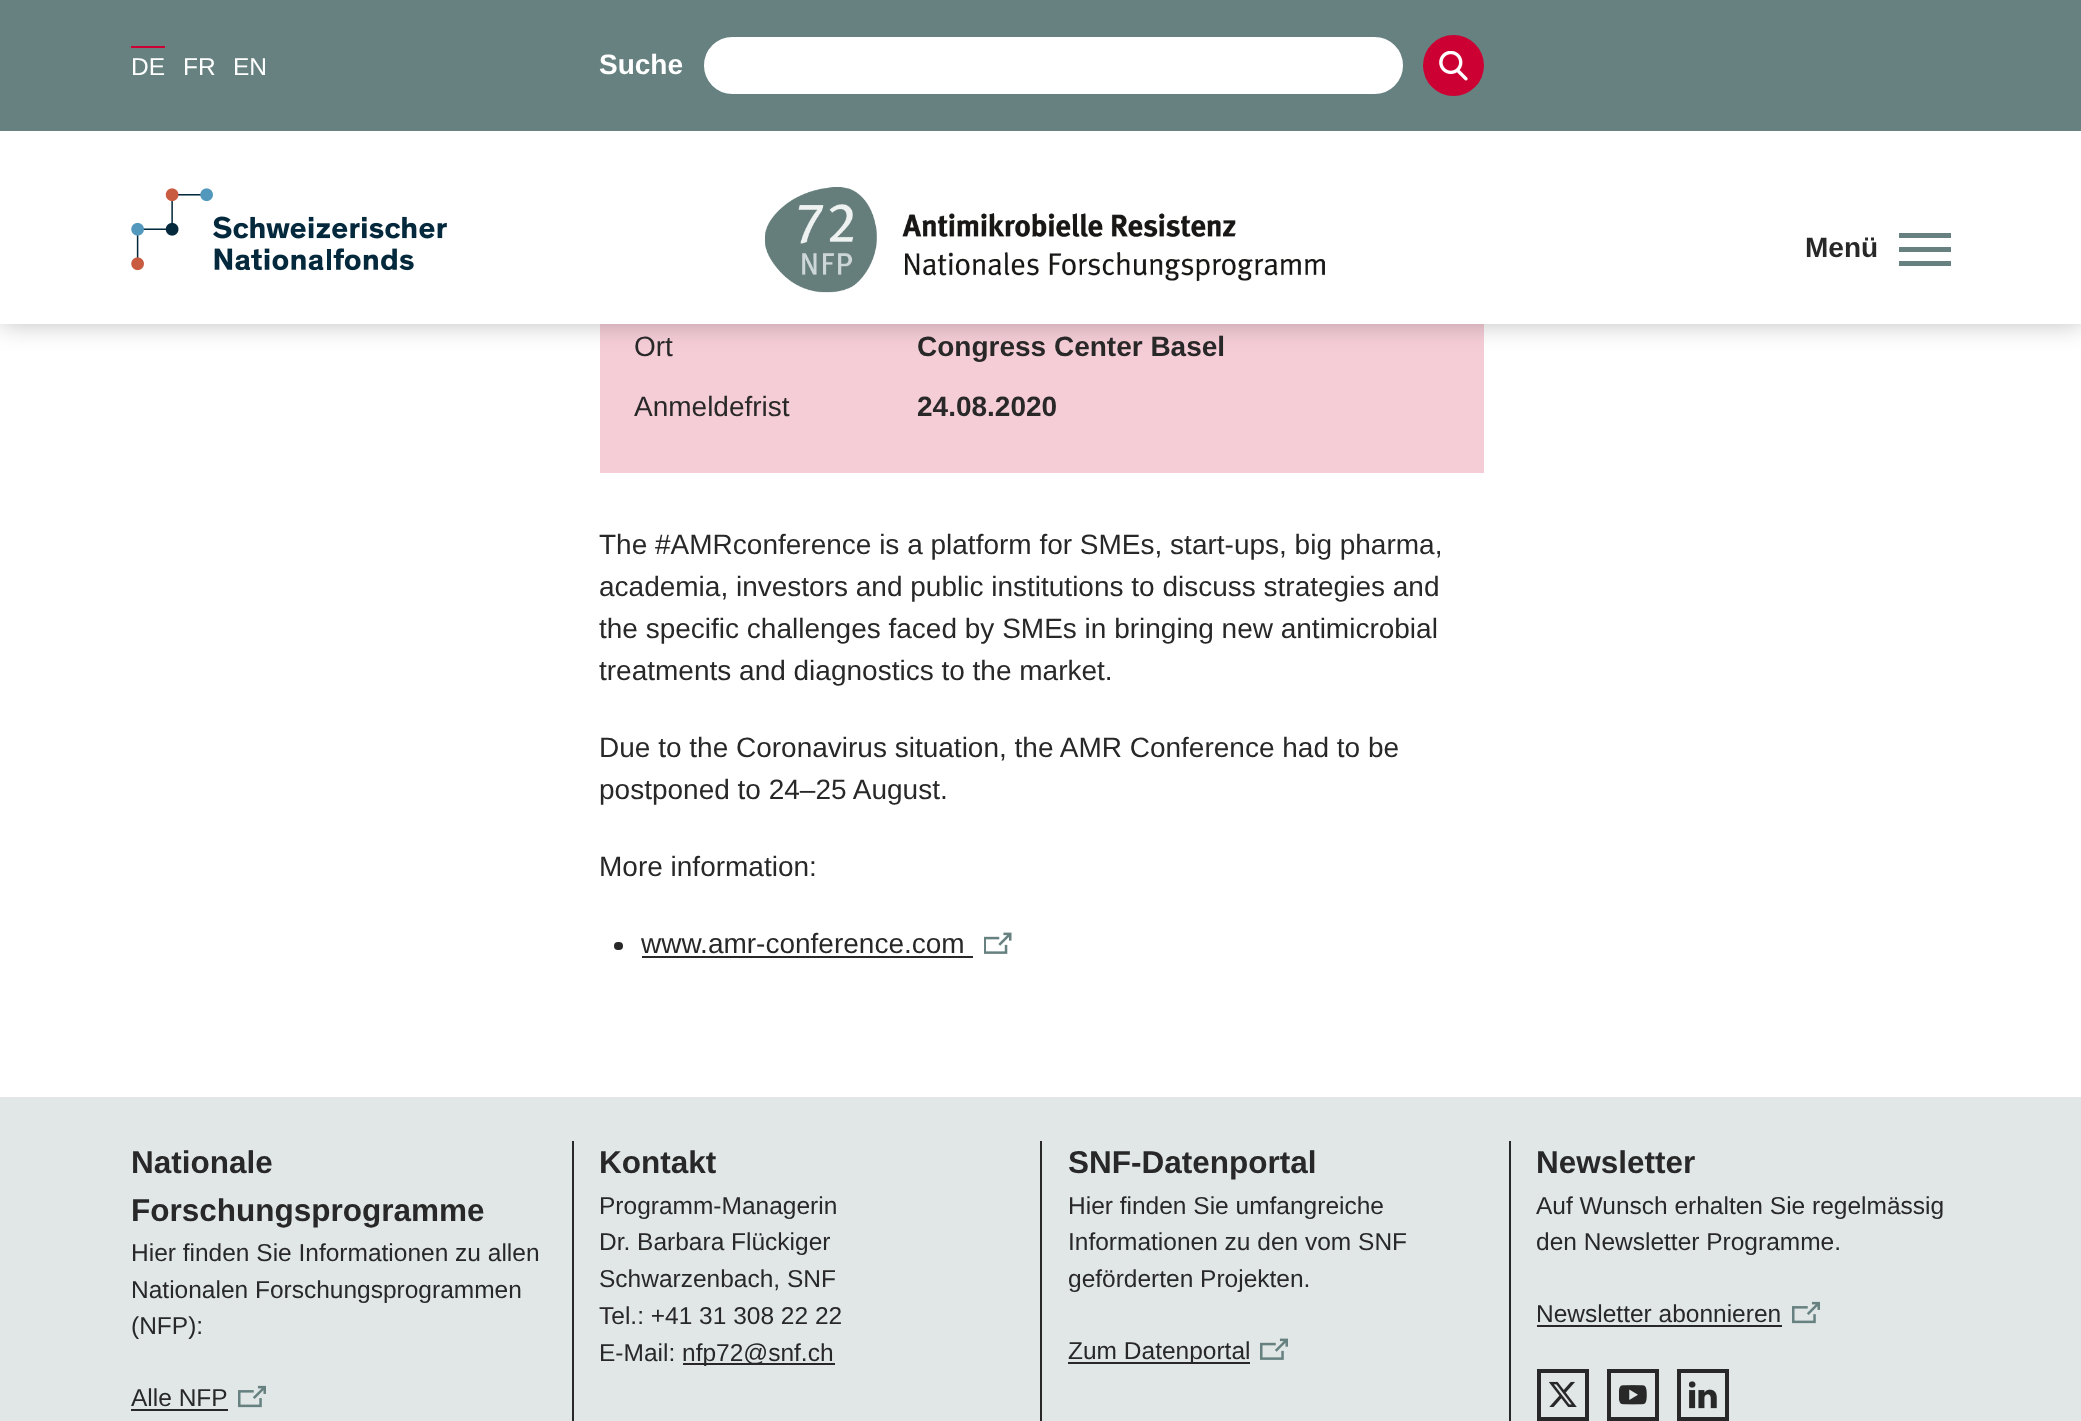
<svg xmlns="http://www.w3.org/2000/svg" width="2081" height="1421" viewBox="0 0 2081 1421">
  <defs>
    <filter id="blur1" x="-50%" y="-200%" width="200%" height="500%"><feGaussianBlur stdDeviation="13"/></filter>
  </defs>
  <rect width="100%" height="100%" fill="#ffffff"/>
  <rect x="600" y="324" width="884" height="149" fill="#f5cdd7"/>
  <rect x="0" y="0" width="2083" height="324" fill="#282828" fill-opacity="0.25" filter="url(#blur1)"/>
  <rect x="0" y="0" width="2081" height="131" fill="#678181"/>
  <rect x="131" y="46" width="34" height="2" fill="#cc0033"/>
  <text x="131" y="75" font-family="Liberation Sans" font-size="24.5" fill="#ffffff">DE</text>
  <text x="183" y="75" font-family="Liberation Sans" font-size="24.5" fill="#ffffff">FR</text>
  <text x="233" y="75" font-family="Liberation Sans" font-size="24.5" fill="#ffffff">EN</text>
  <text x="599" y="74" font-family="Liberation Sans" font-size="28" font-weight="bold" fill="#ffffff">Suche</text>
  <rect x="703" y="36" width="701" height="59" rx="29.5" fill="#ffffff" stroke="#678181" stroke-width="2"/>
  <circle cx="1453.5" cy="65.5" r="30.5" fill="#cc0033"/>
  <image x="1439" y="51" width="29" height="30" href="img1.png"/>
  <rect x="0" y="131" width="2081" height="193" fill="#ffffff"/>
  <image x="131" y="188" width="316" height="83" href="img2.png"/>
  <image x="765" y="187" width="560" height="106" href="img3.png"/>
  <text x="1805" y="257" font-family="Liberation Sans" font-size="28" font-weight="bold" fill="#282828">Menü</text>
  <rect x="1899" y="247" width="52" height="5" fill="#678181"/>
  <rect x="1899" y="233" width="52" height="5" fill="#678181"/>
  <rect x="1899" y="261" width="52" height="5" fill="#678181"/>
  <text x="634" y="356" font-family="Liberation Sans" font-size="28" fill="#282828">Ort</text>
  <text x="917" y="356" font-family="Liberation Sans" font-size="28" font-weight="bold" fill="#282828">Congress Center Basel</text>
  <text x="634" y="416" font-family="Liberation Sans" font-size="28" fill="#282828">Anmeldefrist</text>
  <text x="917" y="416" font-family="Liberation Sans" font-size="28" font-weight="bold" fill="#282828">24.08.2020</text>
  <text x="599" y="554" font-family="Liberation Sans" font-size="28" fill="#282828">The #AMRconference is a platform for SMEs, start-ups, big pharma,</text>
  <text x="599" y="596" font-family="Liberation Sans" font-size="28" fill="#282828">academia, investors and public institutions to discuss strategies and</text>
  <text x="599" y="638" font-family="Liberation Sans" font-size="28" fill="#282828">the specific challenges faced by SMEs in bringing new antimicrobial</text>
  <text x="599" y="680" font-family="Liberation Sans" font-size="28" fill="#282828">treatments and diagnostics to the market.</text>
  <text x="599" y="757" font-family="Liberation Sans" font-size="28" fill="#282828">Due to the Coronavirus situation, the AMR Conference had to be</text>
  <text x="599" y="799" font-family="Liberation Sans" font-size="28" fill="#282828">postponed to 24–25 August.</text>
  <text x="599" y="876" font-family="Liberation Sans" font-size="28" fill="#282828">More information:</text>
  <rect x="614" y="942" width="9" height="8" rx="4" fill="#282828"/>
  <text x="641" y="953" font-family="Liberation Sans" font-size="28" fill="#282828">www.amr-conference.com</text>
  <rect x="642" y="956" width="331" height="2" fill="#282828"/>
  <image x="984" y="932" width="28" height="22" href="img4.png"/>
  <rect x="0" y="1097" width="2081" height="324" fill="#e1e7e7"/>
  <text x="131" y="1173" font-family="Liberation Sans" font-size="31.5" font-weight="bold" fill="#282828">Nationale</text>
  <text x="131" y="1221" font-family="Liberation Sans" font-size="31.5" font-weight="bold" fill="#282828">Forschungsprogramme</text>
  <text x="131" y="1261" font-family="Liberation Sans" font-size="24.5" fill="#282828">Hier finden Sie Informationen zu allen</text>
  <text x="131" y="1298" font-family="Liberation Sans" font-size="24.5" fill="#282828">Nationalen Forschungsprogrammen</text>
  <text x="131" y="1334" font-family="Liberation Sans" font-size="24.5" fill="#282828">(NFP):</text>
  <text x="131" y="1406" font-family="Liberation Sans" font-size="24.5" fill="#282828">Alle NFP</text>
  <rect x="131" y="1409" width="97" height="2" fill="#282828"/>
  <image x="238" y="1385" width="28" height="23" href="img5.png"/>
  <rect x="572" y="1141" width="2" height="280" fill="#282828"/>
  <text x="599" y="1173" font-family="Liberation Sans" font-size="31.5" font-weight="bold" fill="#282828">Kontakt</text>
  <rect x="1040" y="1141" width="2" height="280" fill="#282828"/>
  <text x="599" y="1214" font-family="Liberation Sans" font-size="24.5" fill="#282828">Programm-Managerin</text>
  <text x="599" y="1250" font-family="Liberation Sans" font-size="24.5" fill="#282828">Dr. Barbara Flückiger</text>
  <text x="599" y="1287" font-family="Liberation Sans" font-size="24.5" fill="#282828">Schwarzenbach, SNF</text>
  <text x="599" y="1324" font-family="Liberation Sans" font-size="24.5" fill="#282828">Tel.: +41 31 308 22 22</text>
  <text x="599" y="1361" font-family="Liberation Sans" font-size="24.5" fill="#282828">E-Mail:</text>
  <rect x="683" y="1363" width="152" height="2" fill="#282828"/>
  <text x="682" y="1361" font-family="Liberation Sans" font-size="24.5" fill="#282828">nfp72@snf.ch</text>
  <text x="1068" y="1173" font-family="Liberation Sans" font-size="31.5" font-weight="bold" fill="#282828">SNF-Datenportal</text>
  <rect x="1509" y="1141" width="2" height="280" fill="#282828"/>
  <text x="1068" y="1214" font-family="Liberation Sans" font-size="24.5" fill="#282828">Hier finden Sie umfangreiche</text>
  <text x="1068" y="1250" font-family="Liberation Sans" font-size="24.5" fill="#282828">Informationen zu den vom SNF</text>
  <text x="1068" y="1287" font-family="Liberation Sans" font-size="24.5" fill="#282828">geförderten Projekten.</text>
  <rect x="1068" y="1362" width="182" height="2" fill="#282828"/>
  <text x="1068" y="1359" font-family="Liberation Sans" font-size="24.5" fill="#282828">Zum Datenportal</text>
  <image x="1260" y="1338" width="28" height="22" href="img6.png"/>
  <text x="1536" y="1173" font-family="Liberation Sans" font-size="31.5" font-weight="bold" fill="#282828">Newsletter</text>
  <text x="1536" y="1214" font-family="Liberation Sans" font-size="24.5" fill="#282828">Auf Wunsch erhalten Sie regelmässig</text>
  <text x="1536" y="1250" font-family="Liberation Sans" font-size="24.5" fill="#282828">den Newsletter Programme.</text>
  <text x="1536" y="1322" font-family="Liberation Sans" font-size="24.5" fill="#282828">Newsletter abonnieren</text>
  <rect x="1537" y="1325" width="245" height="2" fill="#282828"/>
  <image x="1792" y="1301" width="28" height="23" href="img5.png"/>
  <rect x="1539" y="1371" width="48" height="48" fill="none" stroke="#282828" stroke-width="4"/>
  <image x="1549" y="1381" width="28" height="26" href="img7.png"/>
  <rect x="1609" y="1371" width="48" height="48" fill="none" stroke="#282828" stroke-width="4"/>
  <image x="1619" y="1385" width="28" height="20" href="img8.png"/>
  <rect x="1679" y="1371" width="48" height="48" fill="none" stroke="#282828" stroke-width="4"/>
  <image x="1689" y="1381" width="28" height="28" href="img9.png"/>
</svg>
